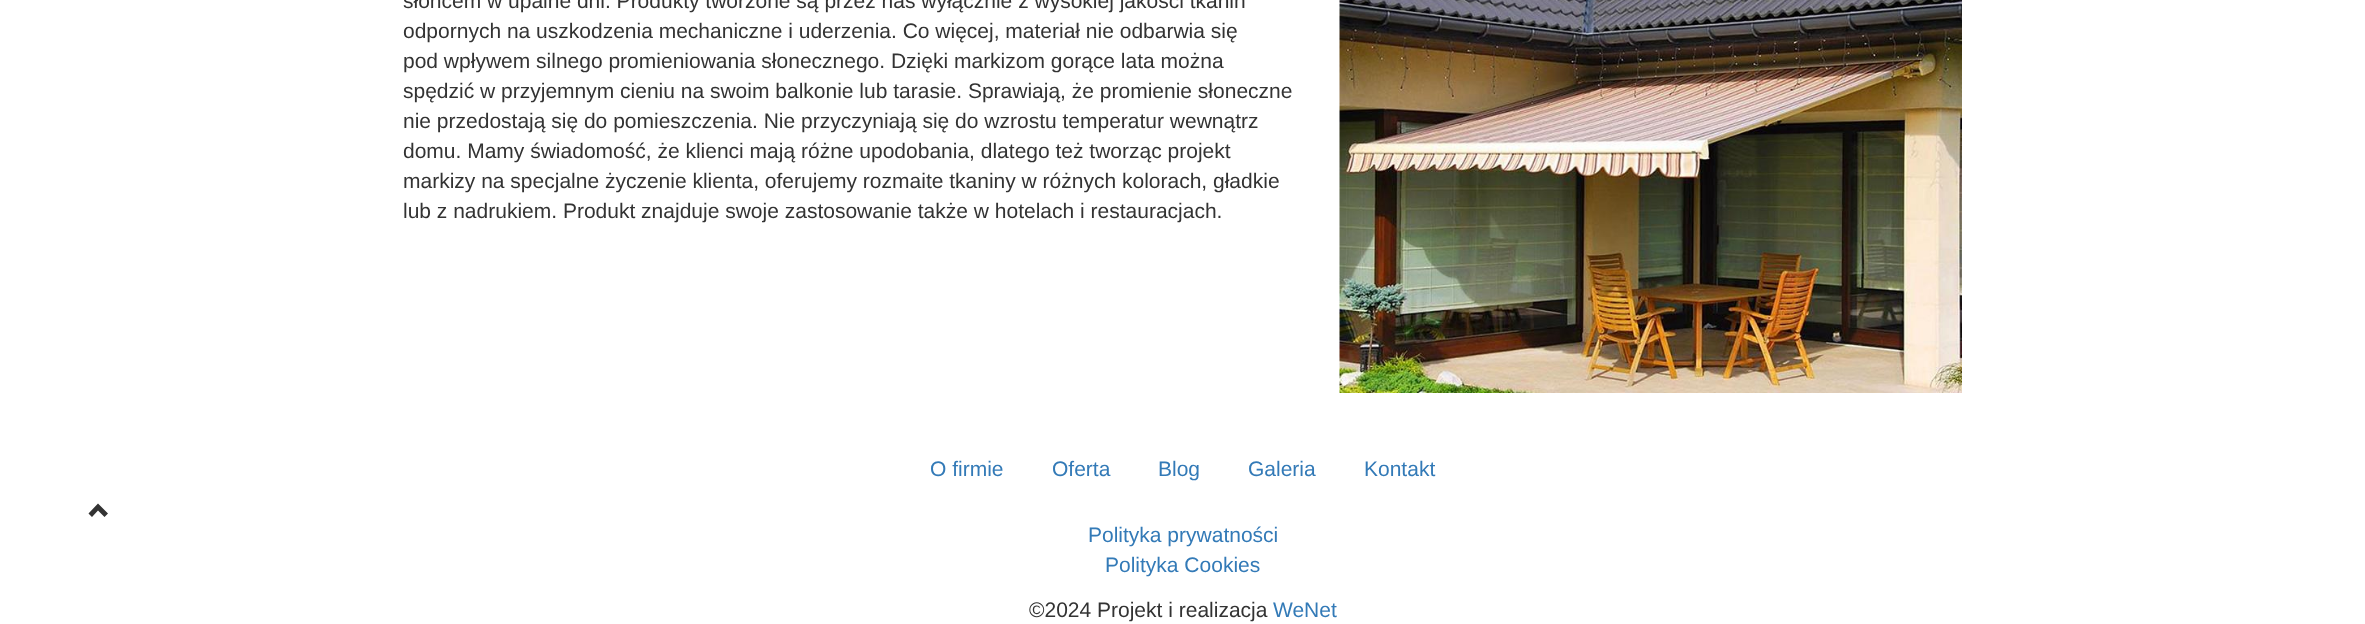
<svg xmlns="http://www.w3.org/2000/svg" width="2365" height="624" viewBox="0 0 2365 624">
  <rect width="100%" height="100%" fill="#ffffff"/>
  <text x="403" y="8" font-family="Liberation Sans" font-size="21" fill="#333333">słońcem w upalne dni. Produkty tworzone są przez nas wyłącznie z wysokiej jakości tkanin</text>
  <text x="403" y="38" font-family="Liberation Sans" font-size="21" fill="#333333">odpornych na uszkodzenia mechaniczne i uderzenia. Co więcej, materiał nie odbarwia się</text>
  <text x="403" y="68" font-family="Liberation Sans" font-size="21" fill="#333333">pod wpływem silnego promieniowania słonecznego. Dzięki markizom gorące lata można</text>
  <text x="403" y="98" font-family="Liberation Sans" font-size="21" fill="#333333">spędzić w przyjemnym cieniu na swoim balkonie lub tarasie. Sprawiają, że promienie słoneczne</text>
  <text x="403" y="128" font-family="Liberation Sans" font-size="21" fill="#333333">nie przedostają się do pomieszczenia. Nie przyczyniają się do wzrostu temperatur wewnątrz</text>
  <text x="403" y="158" font-family="Liberation Sans" font-size="21" fill="#333333">domu. Mamy świadomość, że klienci mają różne upodobania, dlatego też tworząc projekt</text>
  <text x="403" y="188" font-family="Liberation Sans" font-size="21" fill="#333333">markizy na specjalne życzenie klienta, oferujemy rozmaite tkaniny w różnych kolorach, gładkie</text>
  <text x="403" y="218" font-family="Liberation Sans" font-size="21" fill="#333333">lub z nadrukiem. Produkt znajduje swoje zastosowanie także w hotelach i restauracjach.</text>
  <image x="1339" y="0" width="623" height="393" href="img1.png"/>
  <text x="930" y="476" font-family="Liberation Sans" font-size="21" fill="#337ab7">O firmie</text>
  <text x="1052" y="476" font-family="Liberation Sans" font-size="21" fill="#337ab7">Oferta</text>
  <text x="1158" y="476" font-family="Liberation Sans" font-size="21" fill="#337ab7">Blog</text>
  <text x="1248" y="476" font-family="Liberation Sans" font-size="21" fill="#337ab7">Galeria</text>
  <text x="1364" y="476" font-family="Liberation Sans" font-size="21" fill="#337ab7">Kontakt</text>
  <path d="M108 513.5L104.5 517L98 510.5L92 517L88.5 513.5L98 503.5Z" fill="#333333"/>
  <text x="1088" y="542" font-family="Liberation Sans" font-size="21" fill="#337ab7">Polityka prywatności</text>
  <text x="1105" y="572" font-family="Liberation Sans" font-size="21" fill="#337ab7">Polityka Cookies</text>
  <text x="1029" y="617" font-family="Liberation Sans" font-size="21" fill="#333333">©2024 Projekt i realizacja</text>
  <text x="1273" y="617" font-family="Liberation Sans" font-size="21" fill="#337ab7">WeNet</text>
</svg>
